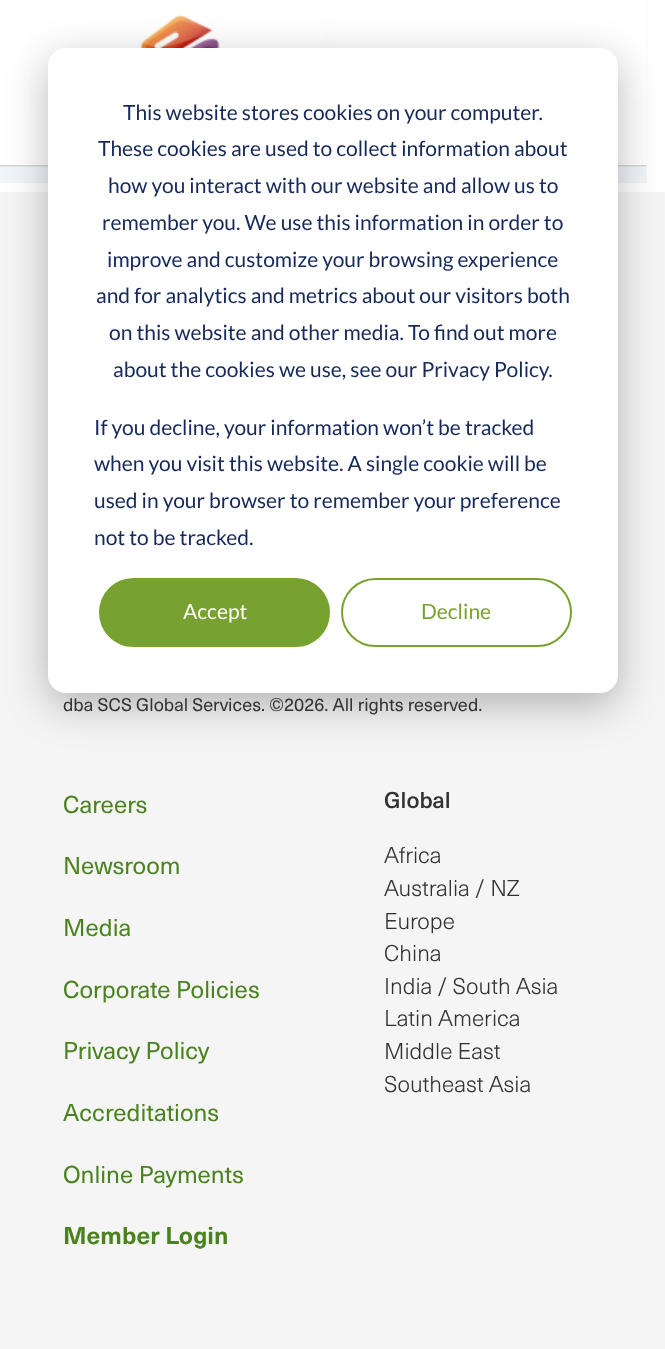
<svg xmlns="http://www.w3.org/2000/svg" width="665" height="1349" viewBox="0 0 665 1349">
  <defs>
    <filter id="blur1" x="-50%" y="-200%" width="200%" height="500%"><feGaussianBlur stdDeviation="21"/></filter>
  </defs>
  <rect width="100%" height="100%" fill="#ffffff"/>
  <image x="0" y="0" width="647" height="183" href="img1.png"/>
  <rect x="0" y="192" width="665" height="1157" fill="#f5f5f5"/>
  <rect x="48" y="60" width="570" height="645" rx="18" fill="#000000" fill-opacity="0.28" filter="url(#blur1)"/>
  <rect x="48" y="48" width="570" height="645" rx="18" fill="#ffffff"/>
  <text x="123" y="120" font-family="Lato" font-size="21" fill="#15295a">This website stores cookies on your computer.</text>
  <text x="98" y="156" font-family="Lato" font-size="21" fill="#15295a">These cookies are used to collect information about</text>
  <text x="108" y="193" font-family="Lato" font-size="21" fill="#15295a">how you interact with our website and allow us to</text>
  <text x="102" y="230" font-family="Lato" font-size="21" fill="#15295a">remember you. We use this information in order to</text>
  <text x="107" y="267" font-family="Lato" font-size="21" fill="#15295a">improve and customize your browsing experience</text>
  <text x="96" y="303" font-family="Lato" font-size="21" fill="#15295a">and for analytics and metrics about our visitors both</text>
  <text x="109" y="340" font-family="Lato" font-size="21" fill="#15295a">on this website and other media. To find out more</text>
  <text x="113" y="377" font-family="Lato" font-size="21" fill="#15295a">about the cookies we use, see our Privacy Policy.</text>
  <text x="94" y="435" font-family="Lato" font-size="21" fill="#15295a">If you decline, your information won’t be tracked</text>
  <text x="94" y="471" font-family="Lato" font-size="21" fill="#15295a">when you visit this website. A single cookie will be</text>
  <text x="94" y="508" font-family="Lato" font-size="21" fill="#15295a">used in your browser to remember your preference</text>
  <text x="94" y="545" font-family="Lato" font-size="21" fill="#15295a">not to be tracked.</text>
  <rect x="100" y="579" width="229" height="67" rx="33.5" fill="#78a22f" stroke="#78a22f" stroke-width="2"/>
  <text x="183" y="619" font-family="Lato" font-size="21" fill="#ffffff">Accept</text>
  <rect x="342" y="579" width="229" height="67" rx="33.5" fill="none" stroke="#78a22f" stroke-width="2"/>
  <text x="421" y="619" font-family="Lato" font-size="21" fill="#78a22f">Decline</text>
  <text x="63" y="711" font-family="'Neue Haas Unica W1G'" font-size="18" fill="#323232">dba SCS Global Services. ©2026. All rights reserved.</text>
  <text x="63" y="813" font-family="'Neue Haas Unica W1G'" font-size="24" fill="#4a831e">Careers</text>
  <text x="63" y="874" font-family="'Neue Haas Unica W1G'" font-size="24" fill="#4a831e">Newsroom</text>
  <text x="63" y="936" font-family="'Neue Haas Unica W1G'" font-size="24" fill="#4a831e">Media</text>
  <text x="63" y="998" font-family="'Neue Haas Unica W1G'" font-size="24" fill="#4a831e">Corporate Policies</text>
  <text x="63" y="1059" font-family="'Neue Haas Unica W1G'" font-size="24" fill="#4a831e">Privacy Policy</text>
  <text x="63" y="1121" font-family="'Neue Haas Unica W1G'" font-size="24" fill="#4a831e">Accreditations</text>
  <text x="63" y="1183" font-family="'Neue Haas Unica W1G'" font-size="24" fill="#4a831e">Online Payments</text>
  <text x="63" y="1244" font-family="'Neue Haas Unica W1G'" font-size="24" font-weight="bold" fill="#4a831e">Member Login</text>
  <text x="384" y="808" font-family="'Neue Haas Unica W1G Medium'" font-size="22.5" font-weight="500" fill="#323232">Global</text>
  <text x="384" y="863" font-family="'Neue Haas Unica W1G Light'" font-size="22.5" font-weight="300" fill="#323232">Africa</text>
  <text x="384" y="896" font-family="'Neue Haas Unica W1G Light'" font-size="22.5" font-weight="300" fill="#323232">Australia / NZ</text>
  <text x="384" y="929" font-family="'Neue Haas Unica W1G Light'" font-size="22.5" font-weight="300" fill="#323232">Europe</text>
  <text x="384" y="961" font-family="'Neue Haas Unica W1G Light'" font-size="22.5" font-weight="300" fill="#323232">China</text>
  <text x="384" y="994" font-family="'Neue Haas Unica W1G Light'" font-size="22.5" font-weight="300" fill="#323232">India / South Asia</text>
  <text x="384" y="1026" font-family="'Neue Haas Unica W1G Light'" font-size="22.5" font-weight="300" fill="#323232">Latin America</text>
  <text x="384" y="1059" font-family="'Neue Haas Unica W1G Light'" font-size="22.5" font-weight="300" fill="#323232">Middle East</text>
  <text x="384" y="1092" font-family="'Neue Haas Unica W1G Light'" font-size="22.5" font-weight="300" fill="#323232">Southeast Asia</text>
</svg>
